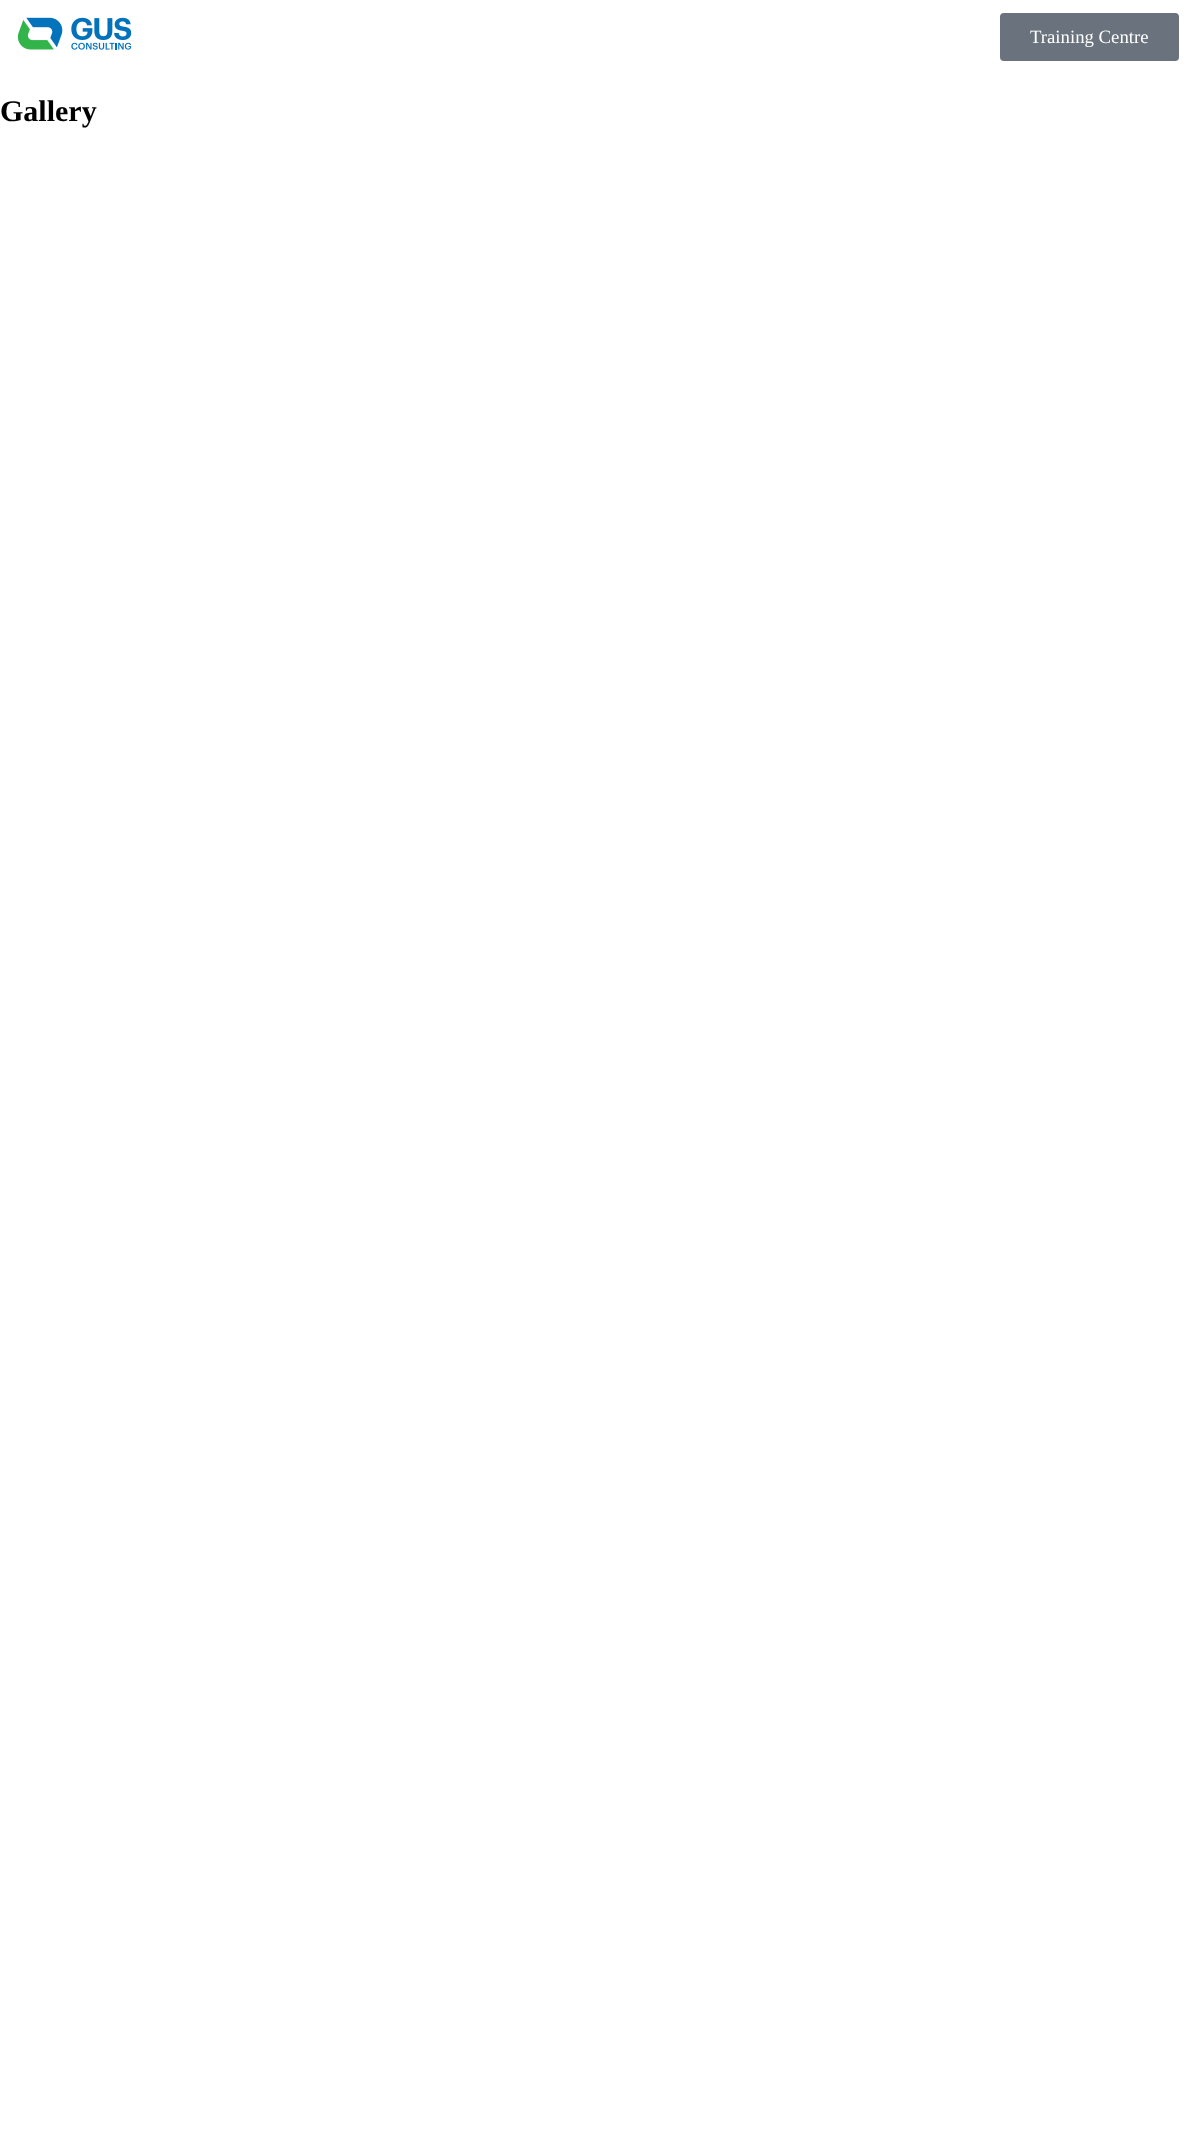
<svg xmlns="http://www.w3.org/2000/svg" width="1191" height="2151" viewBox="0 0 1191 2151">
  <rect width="100%" height="100%" fill="#ffffff"/>
  <image x="17" y="17" width="115" height="33" href="img1.png"/>
  <rect x="1000" y="13" width="179" height="48" rx="4" fill="#69727d"/>
  <text x="1030" y="43" font-family="Liberation Serif" font-size="18.75" fill="#ffffff">Training Centre</text>
  <text x="0" y="121" font-family="Liberation Serif" font-size="30" font-weight="bold" fill="#000000">Gallery</text>
</svg>
